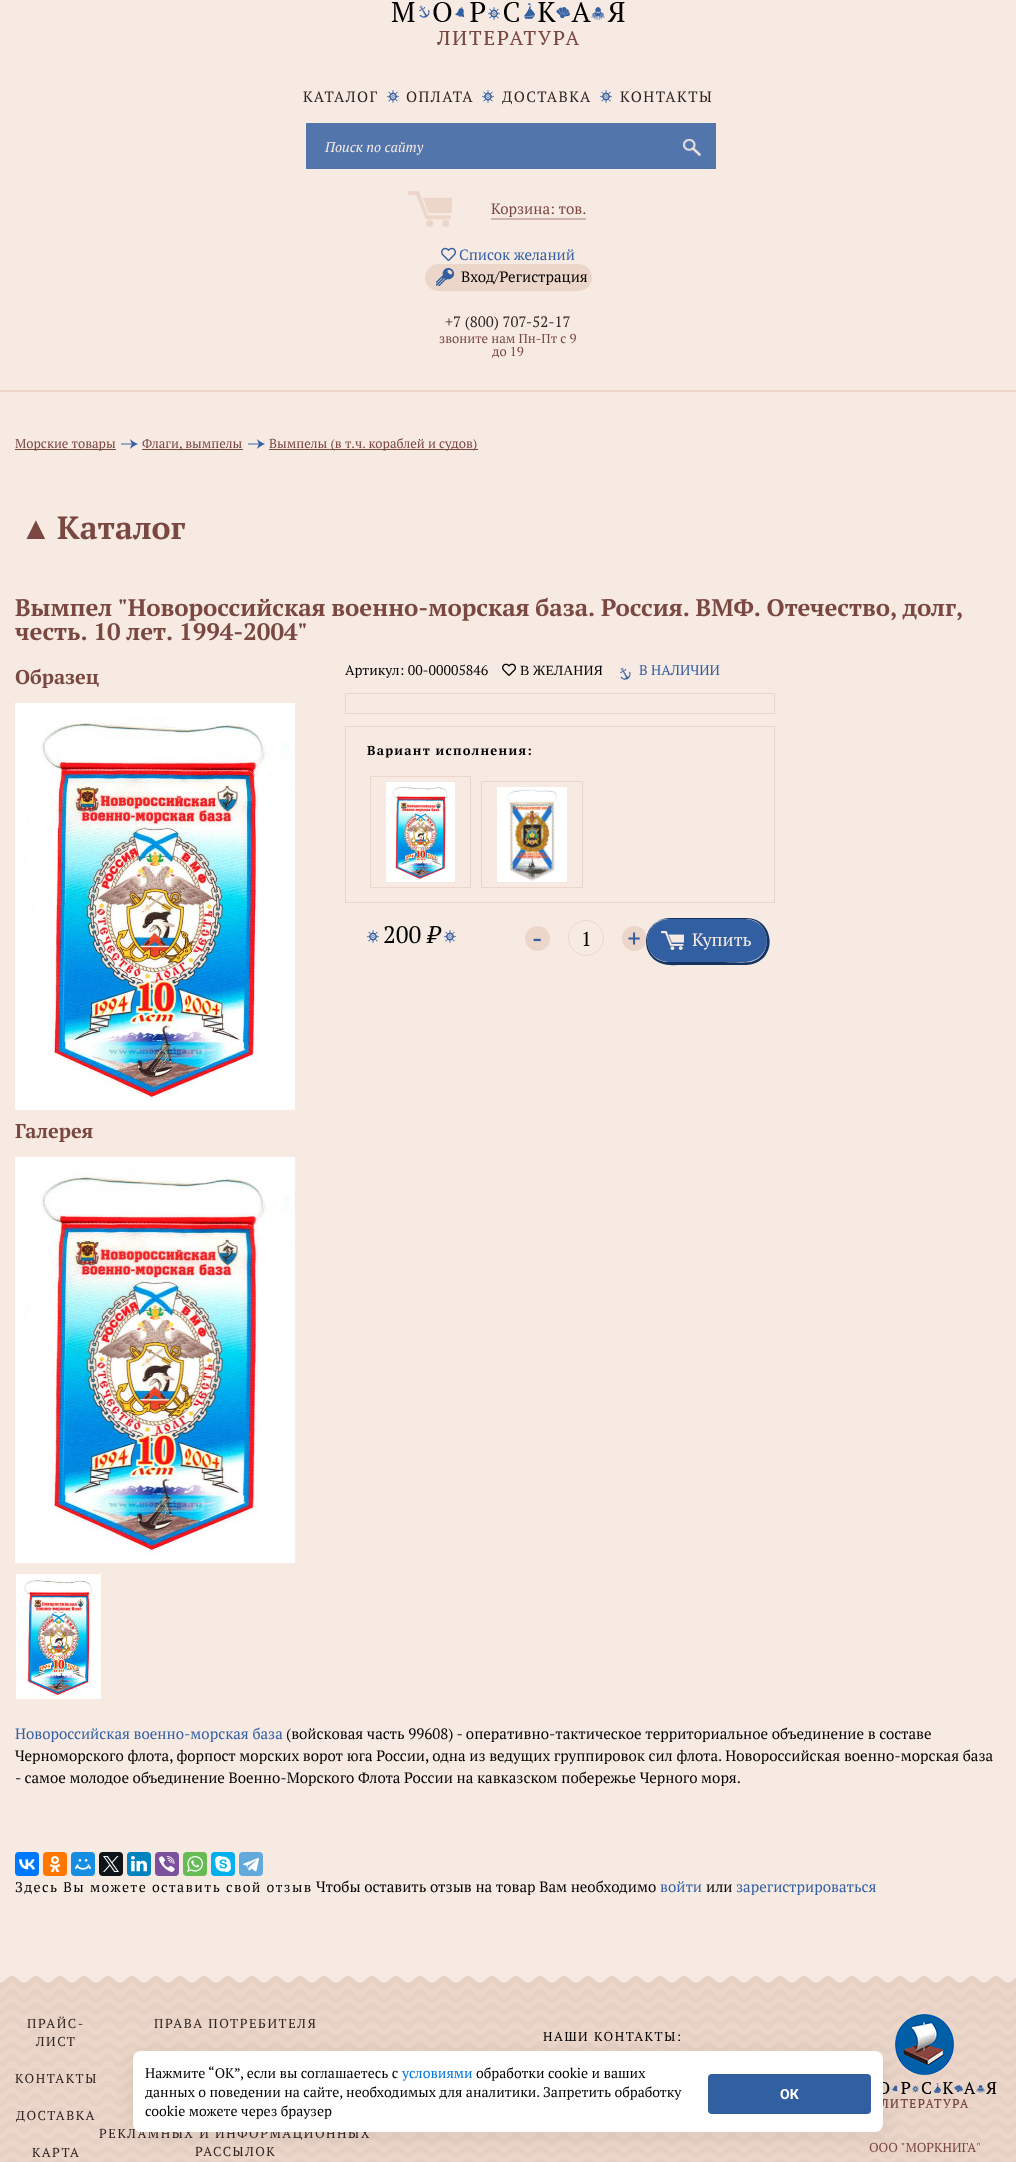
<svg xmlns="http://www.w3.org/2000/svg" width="1016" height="2162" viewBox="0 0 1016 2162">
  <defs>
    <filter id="blur1" x="-50%" y="-200%" width="200%" height="500%"><feGaussianBlur stdDeviation="10"/></filter>
  </defs>
  <rect width="100%" height="100%" fill="#f7eae3"/>
  <rect x="0" y="390" width="1016" height="2" fill="#ecd6c9"/>
  <image x="391" y="2" width="234" height="43" href="img1.png"/>
  <text x="303" y="102" font-family="PT Serif" font-size="15" letter-spacing="1.5" fill="#2f2423">КАТАЛОГ</text>
  <image x="387" y="90" width="12" height="13" href="img2.png"/>
  <text x="406" y="102" font-family="PT Serif" font-size="15" letter-spacing="1.5" fill="#2f2423">ОПЛАТА</text>
  <image x="482" y="90" width="12" height="13" href="img2.png"/>
  <text x="502" y="102" font-family="PT Serif" font-size="15" letter-spacing="1.5" fill="#2f2423">ДОСТАВКА</text>
  <image x="600" y="90" width="12" height="13" href="img2.png"/>
  <text x="620" y="102" font-family="PT Serif" font-size="15" letter-spacing="1.5" fill="#2f2423">КОНТАКТЫ</text>
  <rect x="306" y="123" width="410" height="46" fill="#5275ac"/>
  <text x="325" y="152" font-family="PT Serif" font-size="14" font-style="italic" fill="#f7eae3">Поиск по сайту</text>
  <image x="683" y="139" width="18" height="17" href="img3.png"/>
  <image x="408" y="191" width="44" height="36" href="img4.png"/>
  <text x="491" y="214" font-family="PT Serif" font-size="15" fill="#7a4841">Корзина: тов.</text>
  <rect x="491" y="218" width="95" height="2" fill="#ceb5ae"/>
  <image x="441" y="247" width="15" height="14" href="img5.png"/>
  <text x="459" y="260" font-family="PT Serif" font-size="15" fill="#325fa2">Список желаний</text>
  <rect x="425" y="264" width="167" height="27" rx="13.5" fill="#ecd6c9"/>
  <image x="436" y="268" width="18" height="18" href="img6.png"/>
  <text x="461" y="282" font-family="PT Serif" font-size="15" fill="#000000">Вход/Регистрация</text>
  <text x="445" y="327" font-family="PT Serif" font-size="15" fill="#2f2423">+7 (800) 707-52-17</text>
  <text x="439" y="343" font-family="PT Serif" font-size="13" fill="#7a4841">звоните нам Пн-Пт с 9</text>
  <text x="492" y="356" font-family="PT Serif" font-size="13" fill="#7a4841">до 19</text>
  <rect x="15" y="449" width="101" height="1" fill="#7a4841"/>
  <text x="15" y="448" font-family="PT Serif" font-size="13" fill="#7a4841">Морские товары</text>
  <image x="121" y="439" width="17" height="10" href="img7.png"/>
  <rect x="142" y="449" width="101" height="1" fill="#7a4841"/>
  <text x="142" y="448" font-family="PT Serif" font-size="13" fill="#7a4841">Флаги, вымпелы</text>
  <image x="248" y="439" width="17" height="10" href="img7.png"/>
  <rect x="269" y="449" width="209" height="1" fill="#7a4841"/>
  <text x="269" y="448" font-family="PT Serif" font-size="13" fill="#7a4841">Вымпелы (в т.ч. кораблей и судов)</text>
  <text x="20" y="539" font-family="Liberation Serif" font-size="32" fill="#7a4841">▲</text>
  <text x="57" y="539" font-family="PT Serif" font-size="32" font-weight="bold" fill="#7a4841">Каталог</text>
  <text x="15" y="616" word-spacing="-0.75" font-family="PT Serif" font-size="24" font-weight="bold" fill="#7a4841">Вымпел "Новороссийская военно-морская база. Россия. ВМФ. Отечество, долг,</text>
  <text x="15" y="640" word-spacing="-0.5" font-family="PT Serif" font-size="24" font-weight="bold" fill="#7a4841">честь. 10 лет. 1994-2004"</text>
  <text x="15" y="684" font-family="PT Serif" font-size="20" font-weight="bold" fill="#7a4841">Образец</text>
  <image x="15" y="703" width="280" height="407" href="img8.png"/>
  <text x="15" y="1138" font-family="PT Serif" font-size="20" font-weight="bold" fill="#7a4841">Галерея</text>
  <image x="15" y="1157" width="280" height="406" href="img9.png"/>
  <image x="16" y="1574" width="85" height="125" href="img10.png"/>
  <text x="345" y="675" font-family="PT Serif" font-size="14" fill="#000000">Артикул: 00-00005846</text>
  <image x="502" y="663" width="14" height="13" href="img11.png"/>
  <text x="520" y="675" font-family="Liberation Serif" font-size="14" fill="#000000">В ЖЕЛАНИЯ</text>
  <image x="620" y="667" width="11" height="13" href="img12.png"/>
  <text x="639" y="675" font-family="PT Serif" font-size="14" fill="#325fa2">В НАЛИЧИИ</text>
  <rect x="345.5" y="693.5" width="429" height="20" fill="none" stroke="#ecd6c9"/>
  <rect x="345.5" y="726.5" width="429" height="176" fill="none" stroke="#ecd6c9"/>
  <text x="367" y="755" font-family="PT Serif" font-size="13" font-weight="bold" letter-spacing="1.25" fill="#000000">Вариант исполнения:</text>
  <rect x="370.5" y="776.5" width="100" height="111" fill="none" stroke="#ecd6c9"/>
  <image x="386" y="782" width="69" height="100" href="img13.png"/>
  <rect x="481.5" y="781.5" width="101" height="106" fill="none" stroke="#ecd6c9"/>
  <image x="497" y="787" width="70" height="95" href="img14.png"/>
  <image x="367" y="930" width="12" height="13" href="img2.png"/>
  <text x="383" y="943" font-family="PT Serif" font-size="24" fill="#000000">200</text>
  <text x="427" y="943" font-family="PT Serif" font-size="24" font-style="italic" fill="#000000">₽</text>
  <image x="444" y="930" width="12" height="13" href="img2.png"/>
  <circle cx="537.5" cy="938.5" r="12.5" fill="#ecd6c9"/>
  <text x="532" y="947" font-family="PT Serif" font-size="25" font-weight="bold" fill="#325fa2">-</text>
  <circle cx="586" cy="938" r="17.5" fill="none" stroke="#ecd6ca"/>
  <text x="581" y="946" font-family="PT Serif" font-size="20" fill="#000000">1</text>
  <circle cx="634.5" cy="938.5" r="12.5" fill="#ecd6c9"/>
  <text x="627" y="947" font-family="PT Serif" font-size="25" font-weight="bold" fill="#325fa2">+</text>
  <path d="M670 918C644 918 637 953 660 963C667 966 675 965 682 965H746C778 964 777 918 746 918ZM668 919C641 919 640 961 668 962H720C728 962 742 963 750 962C775 957 771 919 746 919Z" fill="#153361" fill-rule="evenodd"/>
  <rect x="647" y="919" width="120" height="43" rx="21.5" fill="#325fa2"/>
  <image x="661" y="931" width="23" height="19" href="img15.png"/>
  <text x="692" y="946" font-family="PT Serif" font-size="18" fill="#f7eae3">Купить</text>
  <text x="15" y="1739" font-family="PT Serif" font-size="15" fill="#325fa2">Новороссийская военно-морская база</text>
  <text x="286" y="1739" font-family="PT Serif" font-size="15" fill="#000000">(войсковая часть 99608) - оперативно-тактическое территориальное объединение в составе</text>
  <text x="15" y="1761" font-family="PT Serif" font-size="15" fill="#000000">Черноморского флота, форпост морских ворот юга России, одна из ведущих группировок сил флота. Новороссийская военно-морская база</text>
  <text x="15" y="1783" font-family="PT Serif" font-size="15" fill="#000000">- самое молодое объединение Военно-Морского Флота России на кавказском побережье Черного моря.</text>
  <rect x="15" y="1852" width="24" height="24" rx="4" fill="#0077ff"/>
  <image x="19" y="1859" width="16" height="11" href="img16.png"/>
  <rect x="43" y="1852" width="24" height="24" rx="4" fill="#ff7700"/>
  <image x="49" y="1856" width="12" height="16" href="img17.png"/>
  <rect x="71" y="1852" width="24" height="24" rx="4" fill="#168de2"/>
  <image x="75" y="1859" width="16" height="11" href="img18.png"/>
  <rect x="99" y="1852" width="24" height="24" rx="4" fill="#0f1419"/>
  <image x="103" y="1856" width="16" height="16" href="img19.png"/>
  <rect x="127" y="1852" width="24" height="24" rx="4" fill="#0083be"/>
  <image x="131" y="1856" width="16" height="16" href="img20.png"/>
  <rect x="155" y="1852" width="24" height="24" rx="4" fill="#7b519d"/>
  <image x="159" y="1856" width="16" height="16" href="img21.png"/>
  <rect x="183" y="1852" width="24" height="24" rx="4" fill="#65bc54"/>
  <image x="187" y="1856" width="16" height="16" href="img22.png"/>
  <rect x="211" y="1852" width="24" height="24" rx="4" fill="#00aff0"/>
  <image x="215" y="1856" width="16" height="16" href="img23.png"/>
  <rect x="239" y="1852" width="24" height="24" rx="4" fill="#64a9dc"/>
  <image x="243" y="1858" width="16" height="14" href="img24.png"/>
  <text x="15" y="1892" font-family="PT Serif" font-size="14" letter-spacing="1.4" fill="#000000">Здесь Вы можете оставить свой отзыв</text>
  <text x="316" y="1892" font-family="PT Serif" font-size="15" fill="#000000">Чтобы оставить отзыв на товар Вам необходимо</text>
  <text x="660" y="1892" font-family="PT Serif" font-size="15" fill="#325fa2">войти</text>
  <text x="706" y="1892" font-family="PT Serif" font-size="15" fill="#000000">или</text>
  <text x="736" y="1892" font-family="PT Serif" font-size="15" fill="#325fa2">зарегистрироваться</text>
  <image x="0" y="1983" width="1016" height="179" href="img25.png"/>
  <image x="0" y="1976" width="1016" height="7" href="img26.png"/>
  <text x="27" y="2028" font-family="PT Serif" font-size="13" letter-spacing="1.55" fill="#2f2423">ПРАЙС-</text>
  <text x="36" y="2046" font-family="PT Serif" font-size="13" letter-spacing="1.55" fill="#2f2423">ЛИСТ</text>
  <text x="15" y="2083" font-family="PT Serif" font-size="13" letter-spacing="1.55" fill="#2f2423">КОНТАКТЫ</text>
  <text x="16" y="2120" font-family="PT Serif" font-size="13" letter-spacing="1.55" fill="#2f2423">ДОСТАВКА</text>
  <text x="32" y="2157" font-family="PT Serif" font-size="13" letter-spacing="1.55" fill="#2f2423">КАРТА</text>
  <text x="154" y="2028" font-family="PT Serif" font-size="13" letter-spacing="1.55" fill="#2f2423">ПРАВА ПОТРЕБИТЕЛЯ</text>
  <text x="99" y="2138" font-family="PT Serif" font-size="13" letter-spacing="1.55" fill="#2f2423">РЕКЛАМНЫХ И ИНФОРМАЦИОННЫХ</text>
  <text x="195" y="2156" font-family="PT Serif" font-size="13" letter-spacing="1.55" fill="#2f2423">РАССЫЛОК</text>
  <text x="543" y="2041" font-family="PT Serif" font-size="13" letter-spacing="1.55" fill="#000000">НАШИ КОНТАКТЫ:</text>
  <image x="883" y="2014" width="114" height="94" href="img27.png"/>
  <text x="869" y="2152" font-family="PT Serif" font-size="13" fill="#7a4841">ООО "МОРКНИГА"</text>
  <rect x="133" y="2055" width="750" height="81" rx="8" fill="#000000" fill-opacity="0.08" filter="url(#blur1)"/>
  <rect x="133" y="2051" width="750" height="81" rx="8" fill="#ffffff"/>
  <text x="145" y="2078" font-family="PT Serif" font-size="14" fill="#000000">Нажмите “ОК”, если вы соглашаетесь с</text>
  <text x="402" y="2078" font-family="PT Serif" font-size="14" fill="#0075e2">условиями</text>
  <text x="476" y="2078" font-family="PT Serif" font-size="14" fill="#000000">обработки cookie и ваших</text>
  <text x="145" y="2097" font-family="PT Serif" font-size="14" fill="#000000">данных о поведении на сайте, необходимых для аналитики. Запретить обработку</text>
  <text x="145" y="2116" font-family="PT Serif" font-size="14" fill="#000000">cookie можете через браузер</text>
  <rect x="708" y="2074" width="163" height="40" rx="4" fill="#325fa2"/>
  <text x="780" y="2099" font-family="Roboto" font-size="14" font-weight="bold" fill="#ffffff">ОК</text>
</svg>
